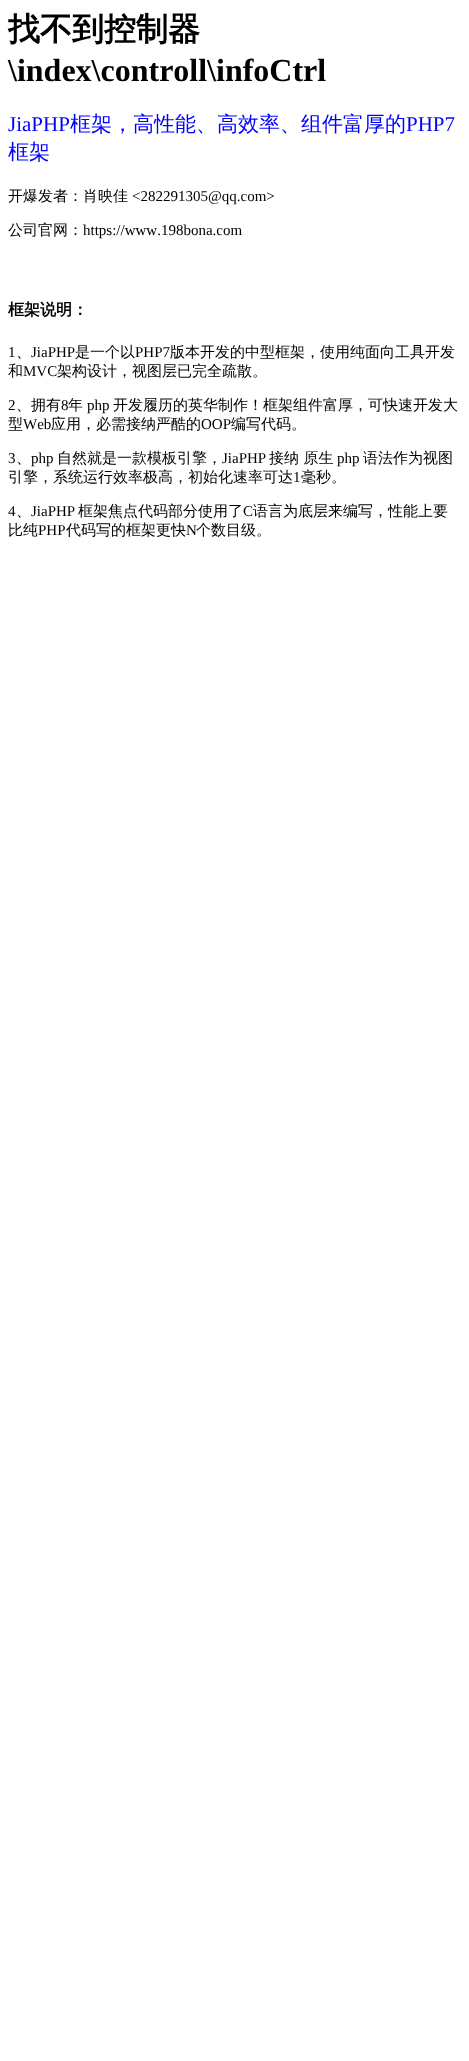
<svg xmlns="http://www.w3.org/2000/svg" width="469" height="2061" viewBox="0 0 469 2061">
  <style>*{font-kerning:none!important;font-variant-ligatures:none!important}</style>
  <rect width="100%" height="100%" fill="#ffffff"/>
  <text x="8" y="40" font-family="WenQuanYi Zen Hei" font-size="32" font-weight="bold" fill="#000000">找不到控制器</text>
  <text x="8" y="81" font-family="Liberation Serif" font-size="32" font-weight="bold" fill="#000000">\index\controll\infoCtrl</text>
  <text x="8" y="131" font-family="Liberation Serif" font-size="21" fill="#0000ff">JiaPHP</text>
  <text x="70" y="131" font-family="WenQuanYi Zen Hei" font-size="21" font-weight="500" fill="#0000ff">框架，高性能、高效率、组件富厚的</text>
  <text x="406" y="131" font-family="Liberation Serif" font-size="21" fill="#0000ff">PHP7</text>
  <text x="8" y="159" font-family="WenQuanYi Zen Hei" font-size="21" font-weight="500" fill="#0000ff">框架</text>
  <text x="8" y="201" font-family="WenQuanYi Zen Hei" font-size="15" font-weight="500" fill="#000000">开爆发者：肖映佳</text>
  <text x="132" y="201" font-family="Liberation Serif" font-size="15" fill="#000000">&lt;282291305@qq.com&gt;</text>
  <text x="8" y="235" font-family="WenQuanYi Zen Hei" font-size="15" font-weight="500" fill="#000000">公司官网：</text>
  <text x="83" y="235" font-family="Liberation Serif" font-size="15" fill="#000000">https://www.198bona.com</text>
  <text x="8" y="315" font-family="WenQuanYi Zen Hei" font-size="16" font-weight="bold" fill="#000000">框架说明：</text>
  <text x="8" y="357" font-family="Liberation Serif" font-size="15" fill="#000000">1</text>
  <text x="16" y="357" font-family="WenQuanYi Zen Hei" font-size="15" font-weight="500" fill="#000000">、</text>
  <text x="31" y="357" font-family="Liberation Serif" font-size="15" fill="#000000">JiaPHP</text>
  <text x="75" y="357" font-family="WenQuanYi Zen Hei" font-size="15" font-weight="500" fill="#000000">是一个以</text>
  <text x="135" y="357" font-family="Liberation Serif" font-size="15" fill="#000000">PHP7</text>
  <text x="170" y="357" font-family="WenQuanYi Zen Hei" font-size="15" font-weight="500" fill="#000000">版本开发的中型框架，使用纯面向工具开发</text>
  <text x="8" y="376" font-family="WenQuanYi Zen Hei" font-size="15" font-weight="500" fill="#000000">和</text>
  <text x="23" y="376" font-family="Liberation Serif" font-size="15" fill="#000000">MVC</text>
  <text x="57" y="376" font-family="WenQuanYi Zen Hei" font-size="15" font-weight="500" fill="#000000">架构设计，视图层已完全疏散。</text>
  <text x="8" y="410" font-family="Liberation Serif" font-size="15" fill="#000000">2</text>
  <text x="16" y="410" font-family="WenQuanYi Zen Hei" font-size="15" font-weight="500" fill="#000000">、拥有</text>
  <text x="61" y="410" font-family="Liberation Serif" font-size="15" fill="#000000">8</text>
  <text x="68" y="410" font-family="WenQuanYi Zen Hei" font-size="15" font-weight="500" fill="#000000">年</text>
  <text x="87" y="410" font-family="Liberation Serif" font-size="15" fill="#000000">php</text>
  <text x="113" y="410" font-family="WenQuanYi Zen Hei" font-size="15" font-weight="500" fill="#000000">开发履历的英华制作！框架组件富厚，可快速开发大</text>
  <text x="8" y="429" font-family="WenQuanYi Zen Hei" font-size="15" font-weight="500" fill="#000000">型</text>
  <text x="23" y="429" font-family="Liberation Serif" font-size="15" fill="#000000">Web</text>
  <text x="51" y="429" font-family="WenQuanYi Zen Hei" font-size="15" font-weight="500" fill="#000000">应用，必需接纳严酷的</text>
  <text x="201" y="429" font-family="Liberation Serif" font-size="15" fill="#000000">OOP</text>
  <text x="231" y="429" font-family="WenQuanYi Zen Hei" font-size="15" font-weight="500" fill="#000000">编写代码。</text>
  <text x="8" y="463" font-family="Liberation Serif" font-size="15" fill="#000000">3</text>
  <text x="16" y="463" font-family="WenQuanYi Zen Hei" font-size="15" font-weight="500" fill="#000000">、</text>
  <text x="31" y="463" font-family="Liberation Serif" font-size="15" fill="#000000">php</text>
  <text x="57" y="463" font-family="WenQuanYi Zen Hei" font-size="15" font-weight="500" fill="#000000">自然就是一款模板引擎，</text>
  <text x="222" y="463" font-family="Liberation Serif" font-size="15" fill="#000000">JiaPHP</text>
  <text x="269" y="463" font-family="WenQuanYi Zen Hei" font-size="15" font-weight="500" fill="#000000">接纳 原生</text>
  <text x="337" y="463" font-family="Liberation Serif" font-size="15" fill="#000000">php</text>
  <text x="363" y="463" font-family="WenQuanYi Zen Hei" font-size="15" font-weight="500" fill="#000000">语法作为视图</text>
  <text x="8" y="482" font-family="WenQuanYi Zen Hei" font-size="15" font-weight="500" fill="#000000">引擎，系统运行效率极高，初始化速率可达</text>
  <text x="293" y="482" font-family="Liberation Serif" font-size="15" fill="#000000">1</text>
  <text x="301" y="482" font-family="WenQuanYi Zen Hei" font-size="15" font-weight="500" fill="#000000">毫秒。</text>
  <text x="8" y="516" font-family="Liberation Serif" font-size="15" fill="#000000">4</text>
  <text x="16" y="516" font-family="WenQuanYi Zen Hei" font-size="15" font-weight="500" fill="#000000">、</text>
  <text x="31" y="516" font-family="Liberation Serif" font-size="15" fill="#000000">JiaPHP</text>
  <text x="78" y="516" font-family="WenQuanYi Zen Hei" font-size="15" font-weight="500" fill="#000000">框架焦点代码部分使用了</text>
  <text x="243" y="516" font-family="Liberation Serif" font-size="15" fill="#000000">C</text>
  <text x="253" y="516" font-family="WenQuanYi Zen Hei" font-size="15" font-weight="500" fill="#000000">语言为底层来编写，性能上要</text>
  <text x="8" y="535" font-family="WenQuanYi Zen Hei" font-size="15" font-weight="500" fill="#000000">比纯</text>
  <text x="38" y="535" font-family="Liberation Serif" font-size="15" fill="#000000">PHP</text>
  <text x="66" y="535" font-family="WenQuanYi Zen Hei" font-size="15" font-weight="500" fill="#000000">代码写的框架更快</text>
  <text x="186" y="535" font-family="Liberation Serif" font-size="15" fill="#000000">N</text>
  <text x="196" y="535" font-family="WenQuanYi Zen Hei" font-size="15" font-weight="500" fill="#000000">个数目级。</text>
</svg>
